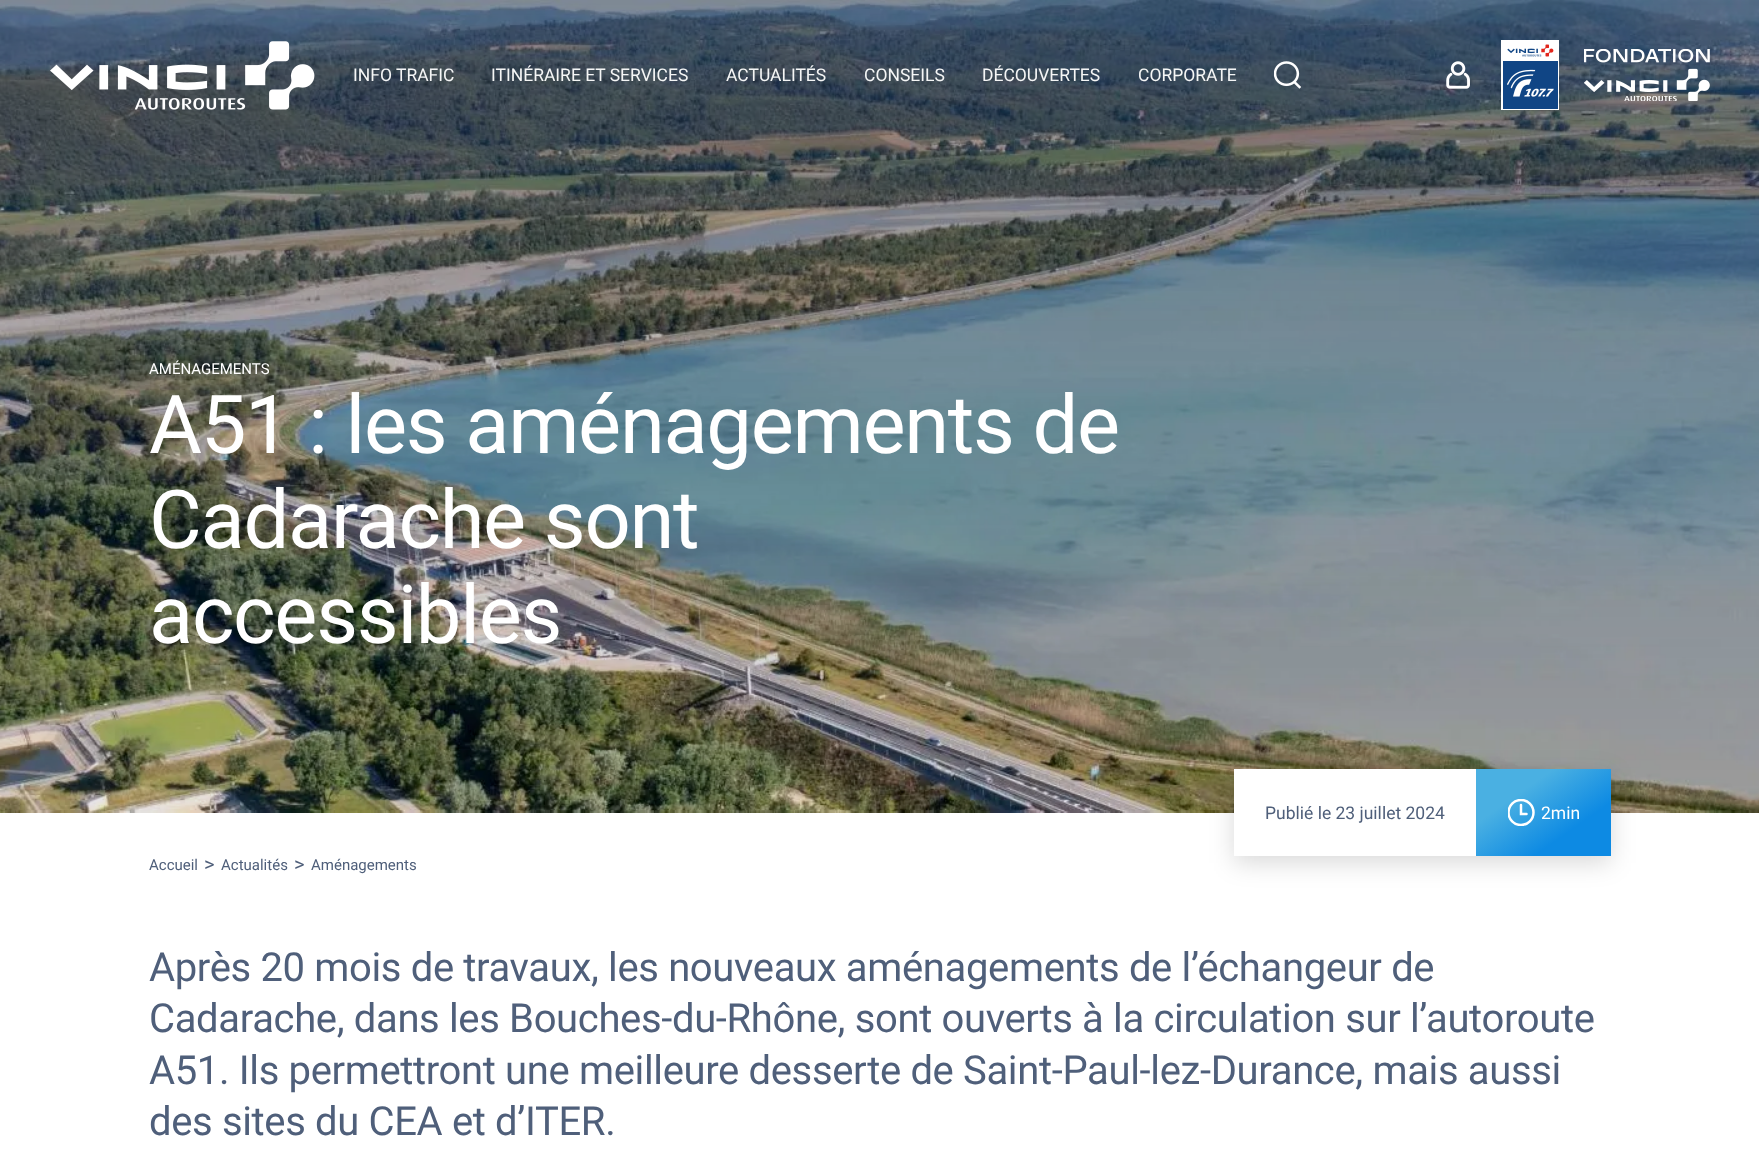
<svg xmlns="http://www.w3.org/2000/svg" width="1759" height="1169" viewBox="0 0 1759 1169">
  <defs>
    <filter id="blur1" x="-50%" y="-200%" width="200%" height="500%"><feGaussianBlur stdDeviation="12.5"/></filter>
    <linearGradient id="g1" gradientUnits="userSpaceOnUse" x1="1587" y1="874" x2="1501" y2="751"><stop offset="0.3" stop-color="#0d8ae3"/><stop offset="0.7" stop-color="#4ab0e2"/></linearGradient>
    <clipPath id="clip1"><rect x="1508" y="799" width="27" height="27"/></clipPath>
  </defs>
  <rect width="100%" height="100%" fill="#ffffff"/>
  <image x="0" y="0" width="1759" height="813" href="img6.png"/>
  <image x="50" y="41" width="265" height="69" href="img1.png"/>
  <text x="353" y="81" font-family="Roboto" font-size="17.5" fill="#f5f6f6">INFO TRAFIC</text>
  <text x="491" y="81" font-family="Roboto" font-size="17.5" fill="#f5f6f6">ITINÉRAIRE ET SERVICES</text>
  <text x="726" y="81" font-family="Roboto" font-size="17.5" fill="#f5f6f6">ACTUALITÉS</text>
  <text x="864" y="81" font-family="Roboto" font-size="17.5" fill="#f5f6f6">CONSEILS</text>
  <text x="982" y="81" font-family="Roboto" font-size="17.5" fill="#f5f6f6">DÉCOUVERTES</text>
  <text x="1138" y="81" font-family="Roboto" font-size="17.5" fill="#f5f6f6">CORPORATE</text>
  <image x="1274" y="61" width="27" height="28" href="img2.png"/>
  <image x="1446" y="61" width="24" height="28" href="img3.png"/>
  <image x="1501" y="40" width="58" height="70" href="img4.png"/>
  <image x="1584" y="49" width="126" height="52" href="img5.png"/>
  <text x="149" y="374" font-family="Roboto" font-size="15" fill="#ffffff">AMÉNAGEMENTS</text>
  <text x="149" y="453" font-family="Roboto" font-size="81.25" letter-spacing="-1.3" fill="#ffffff">A51 : les aménagements de</text>
  <text x="149" y="548" font-family="Roboto" font-size="81.25" letter-spacing="-1.3" fill="#ffffff">Cadarache sont</text>
  <text x="149" y="643" font-family="Roboto" font-size="81.25" letter-spacing="-1.3" fill="#ffffff">accessibles</text>
  <rect x="1234" y="775" width="377" height="88" fill="#000000" fill-opacity="0.15" filter="url(#blur1)"/>
  <rect x="1234" y="769" width="242" height="87" fill="#ffffff"/>
  <text x="1265" y="819" font-family="Roboto" font-size="17.5" fill="#4f5f7a">Publié le 23 juillet 2024</text>
  <rect x="1476" y="769" width="135" height="87" fill="url(#g1)"/>
  <g clip-path="url(#clip1)">
    <circle cx="1521" cy="812.5" r="12.5" fill="none" stroke="#ffffff" stroke-width="2.5"/>
  </g>
  <path d="M1521 805V814H1526.5" fill="none" stroke="#ffffff" stroke-width="2.5" stroke-linecap="round"/>
  <text x="1541" y="819" font-family="Roboto" font-size="17.5" fill="#ffffff">2min</text>
  <text x="149" y="870" font-family="Roboto" font-size="15" fill="#4f5f7a">Accueil</text>
  <text x="204" y="871" font-family="Roboto" font-size="20" fill="#4f5f7a">&gt;</text>
  <text x="221" y="870" font-family="Roboto" font-size="15" fill="#4f5f7a">Actualités</text>
  <text x="294" y="871" font-family="Roboto" font-size="20" fill="#4f5f7a">&gt;</text>
  <text x="311" y="870" font-family="Roboto" font-size="15" fill="#4f5f7a">Aménagements</text>
  <text x="149" y="981" font-family="Roboto" font-size="40" letter-spacing="-0.35" fill="#4f5f7a">Après 20 mois de travaux, les nouveaux aménagements de l’échangeur de</text>
  <text x="149" y="1032" font-family="Roboto" font-size="40" letter-spacing="-0.35" fill="#4f5f7a">Cadarache, dans les Bouches-du-Rhône, sont ouverts à la circulation sur l’autoroute</text>
  <text x="149" y="1084" font-family="Roboto" font-size="40" letter-spacing="-0.35" fill="#4f5f7a">A51. Ils permettront une meilleure desserte de Saint-Paul-lez-Durance, mais aussi</text>
  <text x="149" y="1135" font-family="Roboto" font-size="40" letter-spacing="-0.35" fill="#4f5f7a">des sites du CEA et d’ITER.</text>
</svg>
